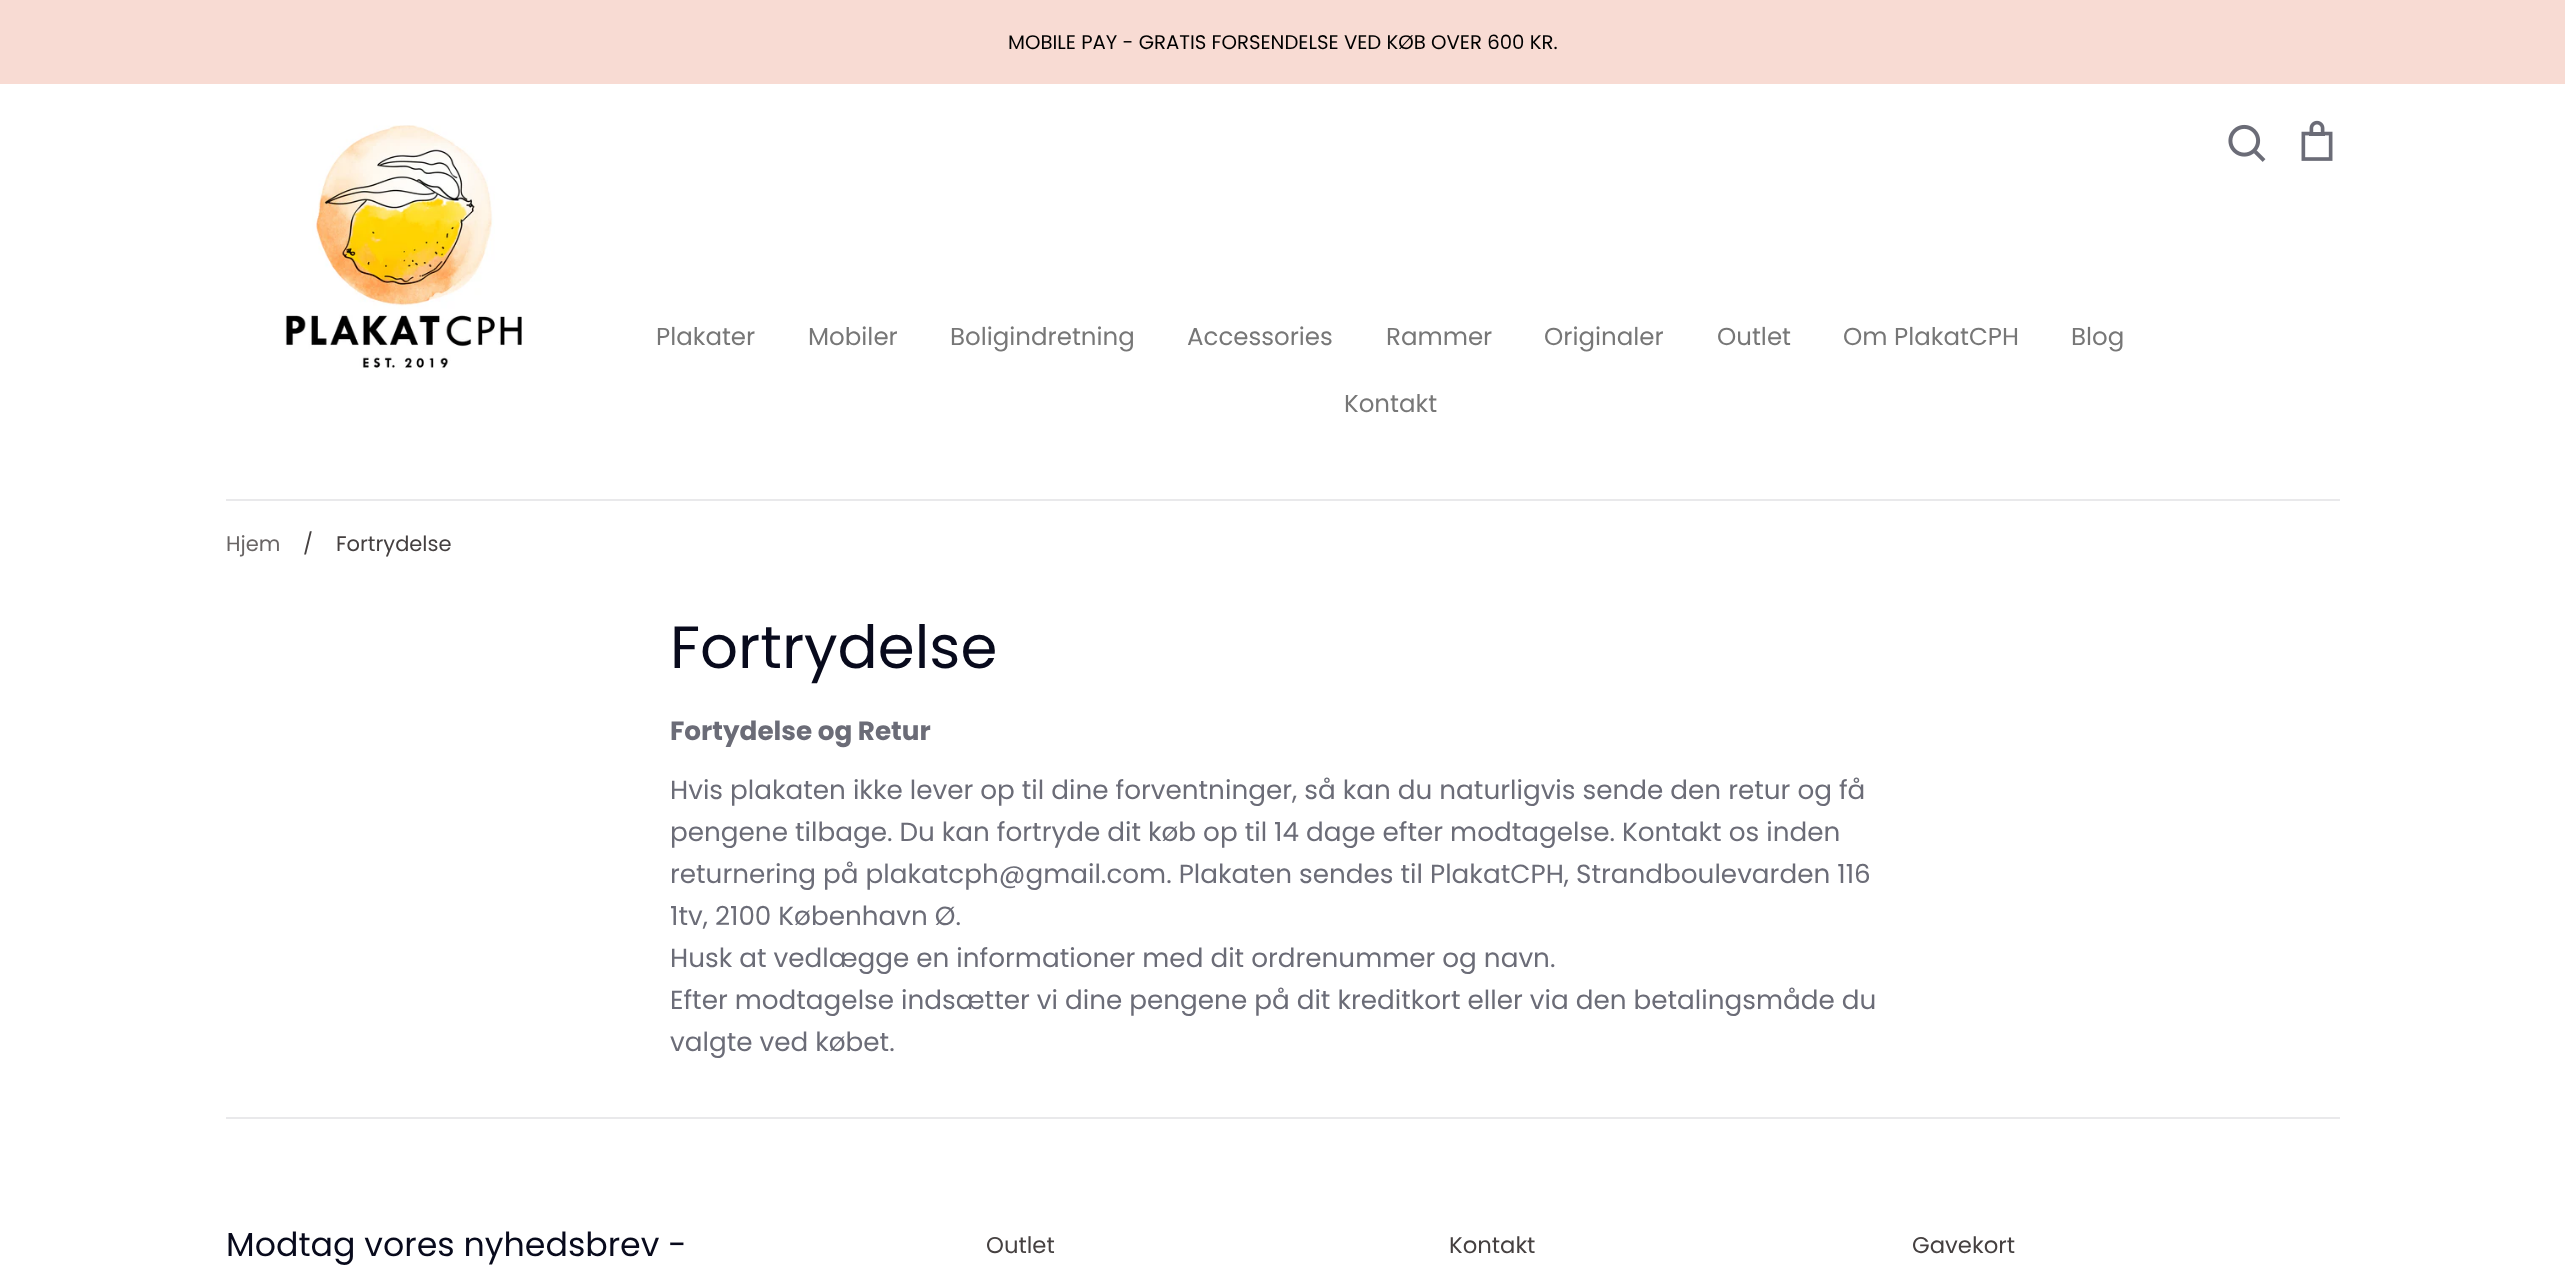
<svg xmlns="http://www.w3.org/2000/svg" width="2565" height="1285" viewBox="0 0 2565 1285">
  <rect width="100%" height="100%" fill="#ffffff"/>
  <rect x="0" y="0" width="2565" height="84" fill="#f8dbd3"/>
  <text x="1008" y="49" font-family="Poppins" font-size="19.7" fill="#000000">MOBILE PAY - GRATIS FORSENDELSE VED KØB OVER 600 KR.</text>
  <rect x="226" y="499" width="2114" height="2" fill="#e9e9eb"/>
  <image x="285" y="125" width="237" height="243" href="img1.png"/>
  <text x="656" y="345" font-family="Poppins" font-size="24.5" fill="#777777">Plakater</text>
  <text x="808" y="345" font-family="Poppins" font-size="24.5" fill="#777777">Mobiler</text>
  <text x="950" y="345" font-family="Poppins" font-size="24.5" fill="#777777">Boligindretning</text>
  <text x="1187" y="345" font-family="Poppins" font-size="24.5" fill="#777777">Accessories</text>
  <text x="1386" y="345" font-family="Poppins" font-size="24.5" fill="#777777">Rammer</text>
  <text x="1544" y="345" font-family="Poppins" font-size="24.5" fill="#777777">Originaler</text>
  <text x="1717" y="345" font-family="Poppins" font-size="24.5" fill="#777777">Outlet</text>
  <text x="1843" y="345" font-family="Poppins" font-size="24.5" fill="#777777">Om PlakatCPH</text>
  <text x="2071" y="345" font-family="Poppins" font-size="24.5" fill="#777777">Blog</text>
  <text x="1344" y="412" font-family="Poppins" font-size="24.5" fill="#777777">Kontakt</text>
  <image x="2228" y="124" width="38" height="38" href="img2.png"/>
  <image x="2301" y="120" width="32" height="41" href="img3.png"/>
  <text x="226" y="551" font-family="Poppins" font-size="21" fill="#6a6666">Hjem</text>
  <text x="303" y="551" font-family="Poppins" font-size="21" fill="#454040">/</text>
  <text x="336" y="551" font-family="Poppins" font-size="21" fill="#454040">Fortrydelse</text>
  <text x="670" y="668" font-family="Poppins" font-size="59.5" fill="#080a1c">Fortrydelse</text>
  <text x="670" y="740" font-family="Poppins" font-size="26.25" font-weight="bold" fill="#6b6c77">Fortydelse og Retur</text>
  <text x="670" y="799" font-family="Poppins" font-size="26.25" fill="#6b6c77">Hvis plakaten ikke lever op til dine forventninger, så kan du naturligvis sende den retur og få</text>
  <text x="670" y="841" font-family="Poppins" font-size="26.25" fill="#6b6c77">pengene tilbage. Du kan fortryde dit køb op til 14 dage efter modtagelse. Kontakt os inden</text>
  <text x="670" y="883" font-family="Poppins" font-size="26.25" fill="#6b6c77">returnering på plakatcph@gmail.com. Plakaten sendes til PlakatCPH, Strandboulevarden 116</text>
  <text x="670" y="925" font-family="Poppins" font-size="26.25" fill="#6b6c77">1tv, 2100 København Ø.</text>
  <text x="670" y="967" font-family="Poppins" font-size="26.25" fill="#6b6c77">Husk at vedlægge en informationer med dit ordrenummer og navn.</text>
  <text x="670" y="1009" font-family="Poppins" font-size="26.25" fill="#6b6c77">Efter modtagelse indsætter vi dine pengene på dit kreditkort eller via den betalingsmåde du</text>
  <text x="670" y="1051" font-family="Poppins" font-size="26.25" fill="#6b6c77">valgte ved købet.</text>
  <rect x="226" y="1117" width="2114" height="2" fill="#e9e9eb"/>
  <text x="226" y="1256" font-family="Poppins" font-size="33.25" fill="#080a1c">Modtag vores nyhedsbrev -</text>
  <text x="986" y="1253" font-family="Poppins" font-size="22.75" fill="#454040">Outlet</text>
  <text x="1449" y="1253" font-family="Poppins" font-size="22.75" fill="#454040">Kontakt</text>
  <text x="1912" y="1253" font-family="Poppins" font-size="22.75" fill="#454040">Gavekort</text>
</svg>
